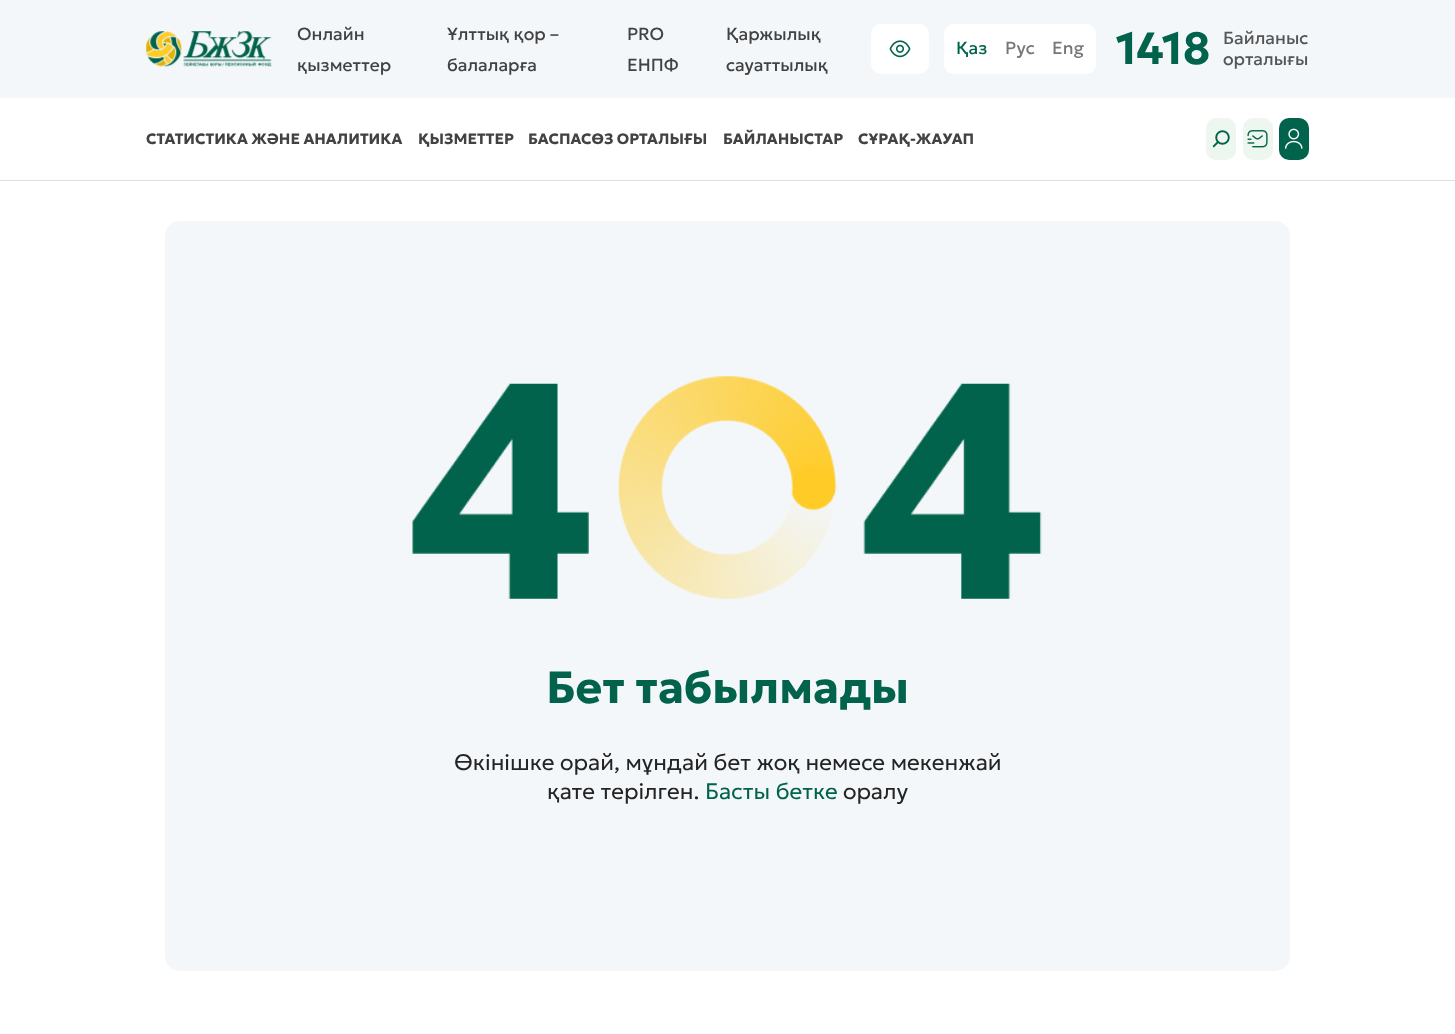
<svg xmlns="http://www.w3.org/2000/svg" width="1455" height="1034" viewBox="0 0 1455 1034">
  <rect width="100%" height="100%" fill="#ffffff"/>
  <rect x="0" y="0" width="1455" height="98" fill="#f4f7fa"/>
  <image x="146" y="31" width="126" height="36" href="img1.png"/>
  <text x="297" y="40" font-family="Geologica" font-size="17.5" fill="#424242">Онлайн</text>
  <text x="297" y="71" font-family="Geologica" font-size="17.5" fill="#424242">қызметтер</text>
  <text x="447" y="40" font-family="Geologica" font-size="17.5" fill="#424242">Ұлттық қор –</text>
  <text x="447" y="71" font-family="Geologica" font-size="17.5" fill="#424242">балаларға</text>
  <text x="627" y="40" font-family="Geologica" font-size="17.5" fill="#424242">PRO</text>
  <text x="627" y="71" font-family="Geologica" font-size="17.5" fill="#424242">ЕНПФ</text>
  <text x="726" y="40" font-family="Geologica" font-size="17.5" fill="#424242">Қаржылық</text>
  <text x="726" y="71" font-family="Geologica" font-size="17.5" fill="#424242">сауаттылық</text>
  <rect x="871" y="24" width="58" height="50" rx="10" fill="#ffffff"/>
  <image x="889" y="40" width="22" height="18" href="img2.png"/>
  <rect x="944" y="24" width="152" height="50" rx="10" fill="#ffffff"/>
  <text x="956" y="54" font-family="Geologica" font-size="17.5" fill="#01634b">Қаз</text>
  <text x="1005" y="54" font-family="Geologica" font-size="17.5" fill="#777777">Рус</text>
  <text x="1052" y="54" font-family="Geologica" font-size="17.5" fill="#777777">Eng</text>
  <text x="1116" y="64" font-family="Geologica" font-size="45" font-weight="bold" fill="#01634b">1418</text>
  <text x="1223" y="44" font-family="Geologica" font-size="17.5" fill="#555555">Байланыс</text>
  <text x="1223" y="65" font-family="Geologica" font-size="17.5" fill="#555555">орталығы</text>
  <rect x="0" y="180" width="1455" height="1" fill="#dbdfec"/>
  <text x="146" y="144" font-family="Geologica" font-size="15" font-weight="bold" fill="#424242">СТАТИСТИКА ЖӘНЕ АНАЛИТИКА</text>
  <text x="418" y="144" font-family="Geologica" font-size="15" font-weight="bold" fill="#424242">ҚЫЗМЕТТЕР</text>
  <text x="528" y="144" font-family="Geologica" font-size="15" font-weight="bold" fill="#424242">БАСПАСӨЗ ОРТАЛЫҒЫ</text>
  <text x="723" y="144" font-family="Geologica" font-size="15" font-weight="bold" fill="#424242">БАЙЛАНЫСТАР</text>
  <text x="858" y="144" font-family="Geologica" font-size="15" font-weight="bold" fill="#424242">СҰРАҚ-ЖАУАП</text>
  <rect x="1206" y="118" width="30" height="42" rx="10" fill="#edf6ef"/>
  <image x="1212" y="130" width="18" height="18" href="img3.png"/>
  <rect x="1243" y="118" width="30" height="42" rx="10" fill="#edf6ef"/>
  <image x="1247" y="130" width="21" height="18" href="img4.png"/>
  <rect x="1279" y="118" width="30" height="42" rx="10" fill="#01634b"/>
  <image x="1285" y="128" width="18" height="21" href="img5.png"/>
  <rect x="165" y="221" width="1125" height="750" rx="15" fill="#f4f7fa"/>
  <image x="412" y="376" width="630" height="223" href="img6.png"/>
  <text x="546" y="703" font-family="Geologica" font-size="45" font-weight="bold" fill="#01634b">Бет табылмады</text>
  <text x="454" y="770" font-family="Geologica" font-size="22.5" font-weight="300" fill="#242424">Өкінішке орай, мұндай бет жоқ немесе мекенжай</text>
  <text x="547" y="799" font-family="Geologica" font-size="22.5" font-weight="300" fill="#242424">қате терілген.</text>
  <text x="705" y="799" font-family="Geologica" font-size="22.5" font-weight="300" fill="#01634b">Басты бетке</text>
  <text x="843" y="799" font-family="Geologica" font-size="22.5" font-weight="300" fill="#242424">оралу</text>
</svg>
